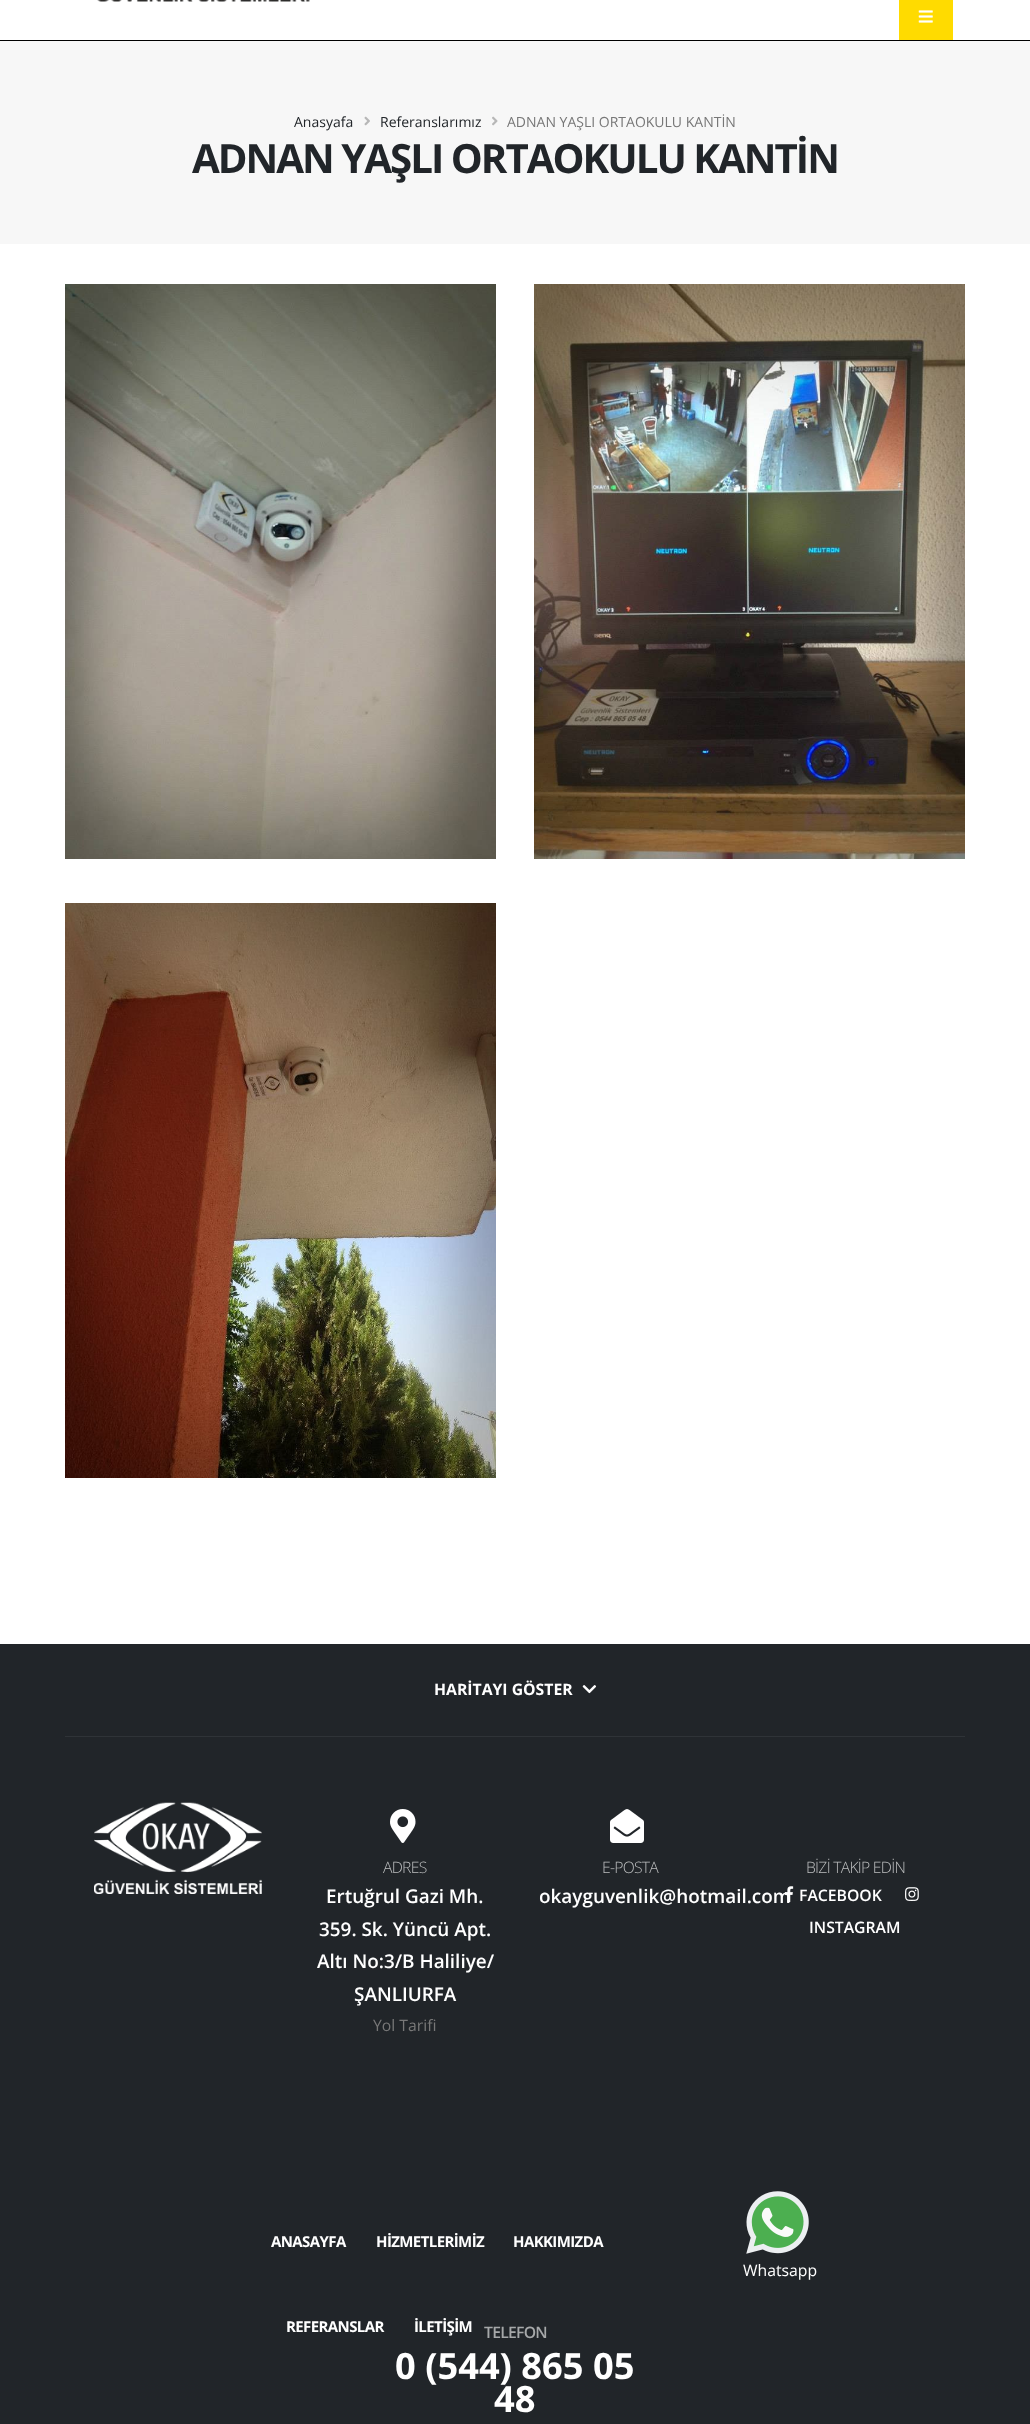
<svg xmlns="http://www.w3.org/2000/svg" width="1030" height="2424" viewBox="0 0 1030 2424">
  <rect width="100%" height="100%" fill="#ffffff"/>
  <rect x="0" y="40" width="1030" height="1" fill="#000000"/>
  <image x="97" y="0" width="213" height="2" href="img1.png"/>
  <rect x="899" y="0" width="54" height="40" fill="#ffdb00"/>
  <image x="918" y="10" width="15" height="13" href="img2.png"/>
  <rect x="0" y="41" width="1030" height="203" fill="#f7f7f7"/>
  <text x="294" y="127" font-family="Open Sans" font-size="14" fill="#212529">Anasyafa</text>
  <image x="364" y="116" width="6" height="10" href="img3.png"/>
  <text x="380" y="127" font-family="Open Sans" font-size="14" fill="#212529">Referanslarımız</text>
  <image x="492" y="116" width="6" height="10" href="img4.png"/>
  <text x="507" y="127" font-family="Open Sans" font-size="14" fill="#777777">ADNAN YAŞLI ORTAOKULU KANTİN</text>
  <text x="192" y="173" font-family="Open Sans" font-size="40.25" font-weight="bold" letter-spacing="-2" fill="#212529">ADNAN YAŞLI ORTAOKULU KANTİN</text>
  <image x="65" y="284" width="431" height="575" href="img5.png"/>
  <image x="534" y="284" width="431" height="575" href="img6.png"/>
  <image x="65" y="903" width="431" height="575" href="img7.png"/>
  <rect x="0" y="1644" width="1030" height="780" fill="#212529"/>
  <rect x="65" y="1736" width="900" height="1" fill="#2f3337"/>
  <text x="434" y="1695" font-family="Open Sans" font-size="15.75" font-weight="bold" fill="#ffffff">HARİTAYI GÖSTER</text>
  <image x="582" y="1685" width="15" height="9" href="img8.png"/>
  <image x="94" y="1802" width="168" height="92" href="img9.png"/>
  <image x="390" y="1809" width="26" height="34" href="img10.png"/>
  <text x="383" y="1873" font-family="Open Sans" font-size="15.75" font-weight="300" letter-spacing="-0.75" fill="#bcbebf">ADRES</text>
  <text x="326" y="1903" font-family="Open Sans" font-size="18.9" font-weight="600" fill="#ffffff">Ertuğrul Gazi Mh.</text>
  <text x="319" y="1936" font-family="Open Sans" font-size="18.9" font-weight="600" fill="#ffffff">359. Sk. Yüncü Apt.</text>
  <text x="317" y="1968" font-family="Open Sans" font-size="18.9" font-weight="600" fill="#ffffff">Altı No:3/B Haliliye/</text>
  <text x="354" y="2001" font-family="Open Sans" font-size="18.9" font-weight="600" fill="#ffffff">ŞANLIURFA</text>
  <text x="373" y="2031" font-family="Open Sans" font-size="15.75" fill="#777777">Yol Tarifi</text>
  <image x="610" y="1809" width="34" height="34" href="img11.png"/>
  <text x="602" y="1873" font-family="Open Sans" font-size="15.75" font-weight="300" letter-spacing="-0.75" fill="#bcbebf">E-POSTA</text>
  <text x="539" y="1903" font-family="Open Sans" font-size="18.9" font-weight="600" fill="#ffffff">okayguvenlik@hotmail.com</text>
  <text x="806" y="1873" font-family="Open Sans" font-size="15.75" font-weight="300" letter-spacing="-0.75" fill="#bcbebf">BİZİ TAKİP EDİN</text>
  <image x="785" y="1886" width="9" height="16" href="img12.png"/>
  <text x="799" y="1901" font-family="Open Sans" font-size="15.75" font-weight="600" fill="#ffffff">FACEBOOK</text>
  <image x="905" y="1887" width="14" height="14" href="img13.png"/>
  <text x="809" y="1933" font-family="Open Sans" font-size="15.75" font-weight="600" fill="#ffffff">INSTAGRAM</text>
  <text x="271" y="2247" font-family="Open Sans" font-size="15" font-weight="bold" letter-spacing="-0.6" fill="#ffffff">ANASAYFA</text>
  <text x="376" y="2247" font-family="Open Sans" font-size="15" font-weight="bold" letter-spacing="-0.6" fill="#ffffff">HİZMETLERİMİZ</text>
  <text x="513" y="2247" font-family="Open Sans" font-size="15" font-weight="bold" letter-spacing="-0.6" fill="#ffffff">HAKKIMIZDA</text>
  <text x="286" y="2332" font-family="Open Sans" font-size="15" font-weight="bold" letter-spacing="-0.6" fill="#ffffff">REFERANSLAR</text>
  <text x="414" y="2332" font-family="Open Sans" font-size="15" font-weight="bold" letter-spacing="-0.6" fill="#ffffff">İLETİŞİM</text>
  <image x="746" y="2191" width="63" height="63" href="img14.png"/>
  <text x="743" y="2276" font-family="Open Sans" font-size="15.75" fill="#ffffff">Whatsapp</text>
  <text x="484" y="2338" font-family="Open Sans" font-size="15.75" font-weight="600" letter-spacing="-0.75" fill="#a6a8a9">TELEFON</text>
  <text x="395" y="2379" font-family="Open Sans" font-size="36.25" font-weight="bold" fill="#ffffff">0 (544) 865 05</text>
  <text x="494" y="2412" font-family="Open Sans" font-size="36.25" font-weight="bold" fill="#ffffff">48</text>
</svg>
